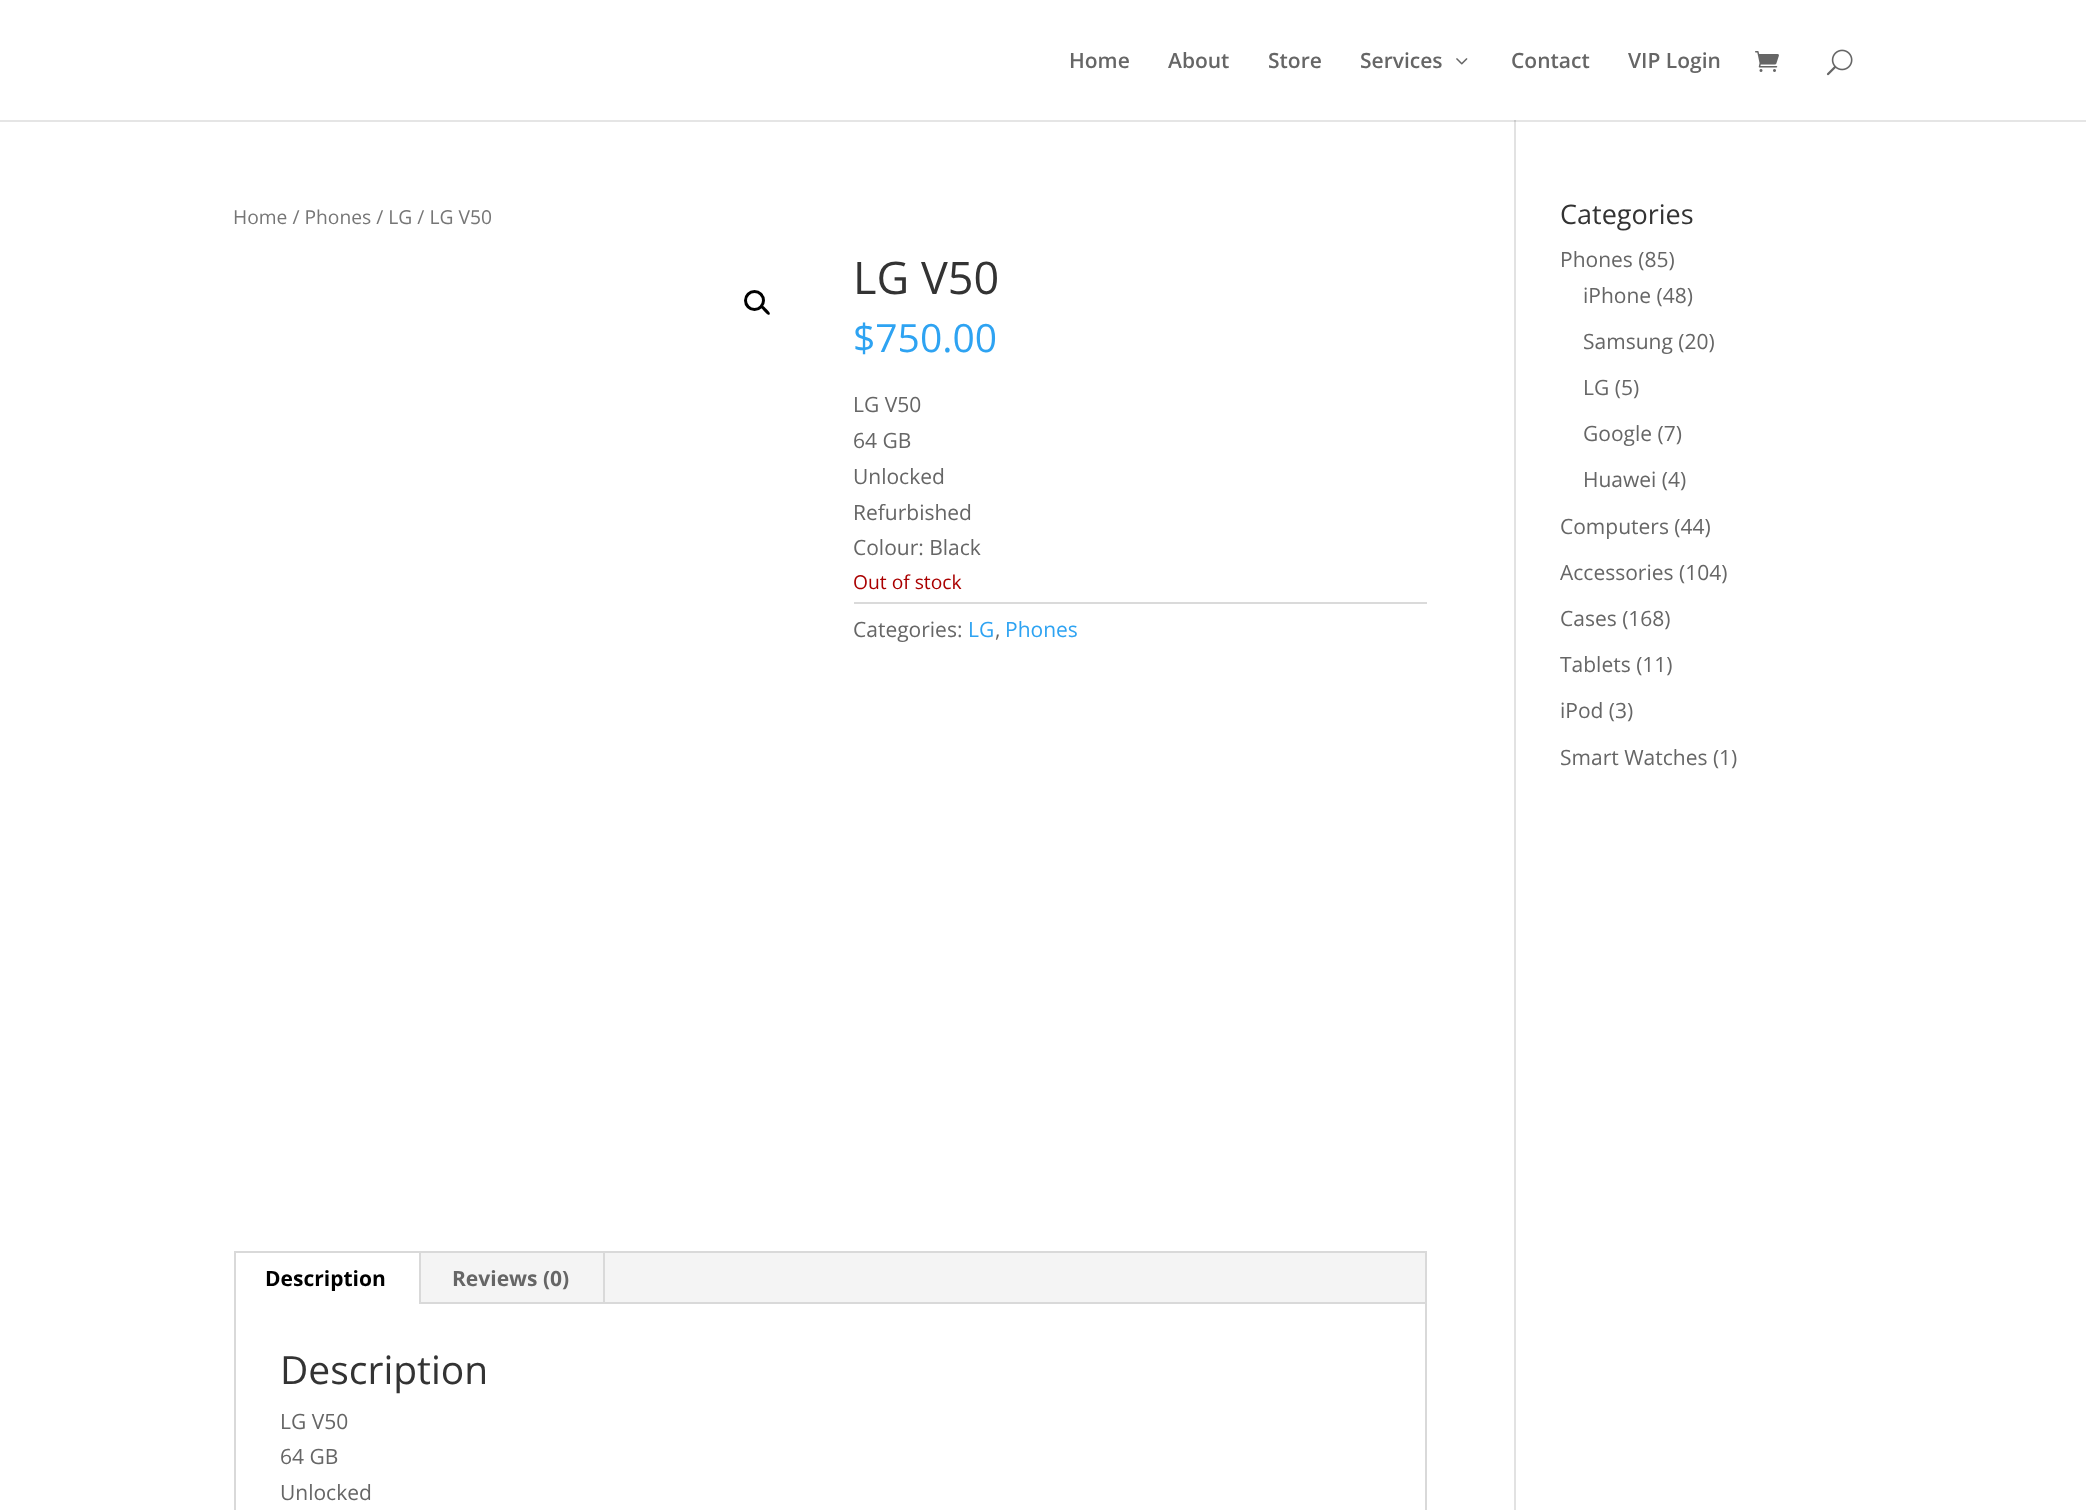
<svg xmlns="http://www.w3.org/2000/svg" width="2086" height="1510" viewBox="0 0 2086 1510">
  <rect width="100%" height="100%" fill="#ffffff"/>
  <rect x="1514" y="113" width="2" height="1397" fill="#e2e2e2"/>
  <path d="M0 120V122H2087V2H2086V120Z" fill="#000000" fill-opacity="0.1"/>
  <rect x="1514" y="113" width="2" height="7" fill="#ffffff"/>
  <text x="1069" y="68" font-family="Open Sans" font-size="21" font-weight="600" fill="#666666">Home</text>
  <text x="1168" y="68" font-family="Open Sans" font-size="21" font-weight="600" fill="#666666">About</text>
  <text x="1268" y="68" font-family="Open Sans" font-size="21" font-weight="600" fill="#666666">Store</text>
  <text x="1360" y="68" font-family="Open Sans" font-size="21" font-weight="600" fill="#666666">Services</text>
  <image x="1456" y="58" width="12" height="7" href="img1.png"/>
  <text x="1511" y="68" font-family="Open Sans" font-size="21" font-weight="600" fill="#666666">Contact</text>
  <text x="1628" y="68" font-family="Open Sans" font-size="21" font-weight="600" fill="#666666">VIP Login</text>
  <image x="1755" y="51" width="24" height="21" href="img2.png"/>
  <image x="1826" y="49" width="27" height="27" href="img3.png"/>
  <text x="233" y="224" font-family="Open Sans" font-size="19.25" fill="#767676">Home / Phones / LG / LG V50</text>
  <circle cx="754.5" cy="300.5" r="9" fill="none" stroke="#000000" stroke-width="3"/>
  <path d="M761 306C762.5 304 765.5 308 766.5 309C767 310 771 312.5 769.5 314.5C768 316 765 312 764 311C763.5 310 759.5 307.5 761 306Z" fill="#000000"/>
  <text x="853" y="294" font-family="Open Sans" font-size="45" fill="#333333">LG V50</text>
  <text x="853" y="352" font-family="Open Sans" font-size="39" fill="#2ea3f2">$750.00</text>
  <text x="853" y="412" font-family="Open Sans" font-size="21" fill="#666666">LG V50</text>
  <text x="853" y="448" font-family="Open Sans" font-size="21" fill="#666666">64 GB</text>
  <text x="853" y="484" font-family="Open Sans" font-size="21" fill="#666666">Unlocked</text>
  <text x="853" y="520" font-family="Open Sans" font-size="21" fill="#666666">Refurbished</text>
  <text x="853" y="555" font-family="Open Sans" font-size="21" fill="#666666">Colour: Black</text>
  <text x="853" y="589" font-family="Open Sans" font-size="19.25" fill="#aa0000">Out of stock</text>
  <rect x="854" y="602" width="573" height="2" fill="#dadada"/>
  <text x="853" y="637" font-family="Open Sans" font-size="21" fill="#666666">Categories:</text>
  <text x="968" y="637" font-family="Open Sans" font-size="21" fill="#2ea3f2">LG</text>
  <text x="995" y="637" font-family="Open Sans" font-size="21" fill="#666666">,</text>
  <text x="1005" y="637" font-family="Open Sans" font-size="21" fill="#2ea3f2">Phones</text>
  <rect x="235" y="1252" width="1191" height="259" fill="none" stroke="#d9d9d9" stroke-width="2"/>
  <rect x="421" y="1253" width="1004" height="49" fill="#f4f4f4"/>
  <rect x="419" y="1253" width="2" height="51" fill="#d9d9d9"/>
  <text x="265" y="1286" font-family="Open Sans" font-size="21" font-weight="bold" fill="#000000">Description</text>
  <rect x="603" y="1253" width="2" height="51" fill="#d9d9d9"/>
  <text x="452" y="1286" font-family="Open Sans" font-size="21" font-weight="bold" fill="#666666">Reviews (0)</text>
  <rect x="421" y="1302" width="1004" height="2" fill="#d9d9d9"/>
  <text x="280" y="1384" font-family="Open Sans" font-size="39" fill="#333333">Description</text>
  <text x="280" y="1429" font-family="Open Sans" font-size="21" fill="#666666">LG V50</text>
  <text x="280" y="1464" font-family="Open Sans" font-size="21" fill="#666666">64 GB</text>
  <text x="280" y="1500" font-family="Open Sans" font-size="21" fill="#666666">Unlocked</text>
  <text x="1560" y="224" font-family="Open Sans" font-size="27" fill="#333333">Categories</text>
  <text x="1560" y="267" font-family="Open Sans" font-size="21" fill="#666666">Phones (85)</text>
  <text x="1583" y="303" font-family="Open Sans" font-size="21" fill="#666666">iPhone (48)</text>
  <text x="1583" y="349" font-family="Open Sans" font-size="21" fill="#666666">Samsung (20)</text>
  <text x="1583" y="395" font-family="Open Sans" font-size="21" fill="#666666">LG (5)</text>
  <text x="1583" y="441" font-family="Open Sans" font-size="21" fill="#666666">Google (7)</text>
  <text x="1583" y="487" font-family="Open Sans" font-size="21" fill="#666666">Huawei (4)</text>
  <text x="1560" y="534" font-family="Open Sans" font-size="21" fill="#666666">Computers (44)</text>
  <text x="1560" y="580" font-family="Open Sans" font-size="21" fill="#666666">Accessories (104)</text>
  <text x="1560" y="626" font-family="Open Sans" font-size="21" fill="#666666">Cases (168)</text>
  <text x="1560" y="672" font-family="Open Sans" font-size="21" fill="#666666">Tablets (11)</text>
  <text x="1560" y="718" font-family="Open Sans" font-size="21" fill="#666666">iPod (3)</text>
  <text x="1560" y="765" font-family="Open Sans" font-size="21" fill="#666666">Smart Watches (1)</text>
</svg>
